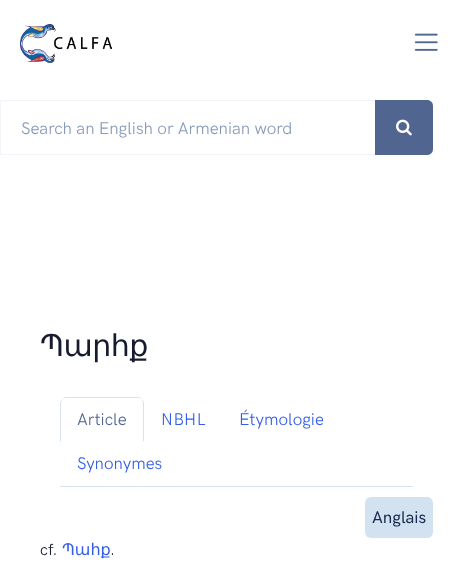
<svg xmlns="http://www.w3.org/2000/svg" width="473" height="571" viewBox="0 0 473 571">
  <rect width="100%" height="100%" fill="#ffffff"/>
  <image x="20" y="24" width="92" height="39" href="img1.png"/>
  <image x="414" y="33" width="24" height="18" href="img2.png"/>
  <rect x="0.5" y="100.5" width="376" height="54" fill="none" stroke="#f1f4f8"/>
  <text x="21" y="134" font-family="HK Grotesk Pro" font-size="17" fill="#869ab8">Search an English or Armenian word</text>
  <path d="M375 100H427C430.5 100 433 102.5 433 106V149C433 152.5 430.5 155 427 155H375Z" fill="#506690"/>
  <image x="396" y="119" width="16" height="17" href="img3.png"/>
  <text x="40" y="356" font-family="DejaVu Sans" font-size="30" letter-spacing="-0.5" fill="#161c2d">Պարհք</text>
  <rect x="60" y="486" width="353" height="1" fill="#d9e2ef"/>
  <path d="M66 397C64 397 63 398 62 399L65 398H139L142 399C141 398 140 397 138 397Z" fill="#d9e2ef"/>
  <path d="M144 442V403C144 402 143 400 142 399C142 400 143 402 143 403V441Z" fill="#d9e2ef"/>
  <path d="M144 442L143 441H61L60 442Z" fill="#ffffff"/>
  <path d="M60 442L61 441V403C61 402 62 400 62 399C61 400 60 402 60 403Z" fill="#d9e2ef"/>
  <text x="77" y="425" font-family="HK Grotesk Pro" font-size="17" fill="#506690">Article</text>
  <text x="161" y="425" font-family="HK Grotesk Pro" font-size="17" fill="#335eea">NBHL</text>
  <text x="239" y="425" font-family="HK Grotesk Pro" font-size="17" fill="#335eea">Étymologie</text>
  <text x="77" y="469" font-family="HK Grotesk Pro" font-size="17" fill="#335eea">Synonymes</text>
  <rect x="365" y="497" width="68" height="41" rx="6" fill="#d3e2f0"/>
  <text x="372" y="523" font-family="HK Grotesk Pro" font-size="17" font-weight="500" fill="#1b2a4e">Anglais</text>
  <text x="40" y="555" font-family="HK Grotesk Pro" font-size="16" fill="#161c2d">cf.</text>
  <text x="62" y="555" font-family="DejaVu Sans" font-size="16" fill="#335eea">Պահք</text>
  <text x="110" y="555" font-family="HK Grotesk Pro" font-size="16" fill="#161c2d">.</text>
</svg>
